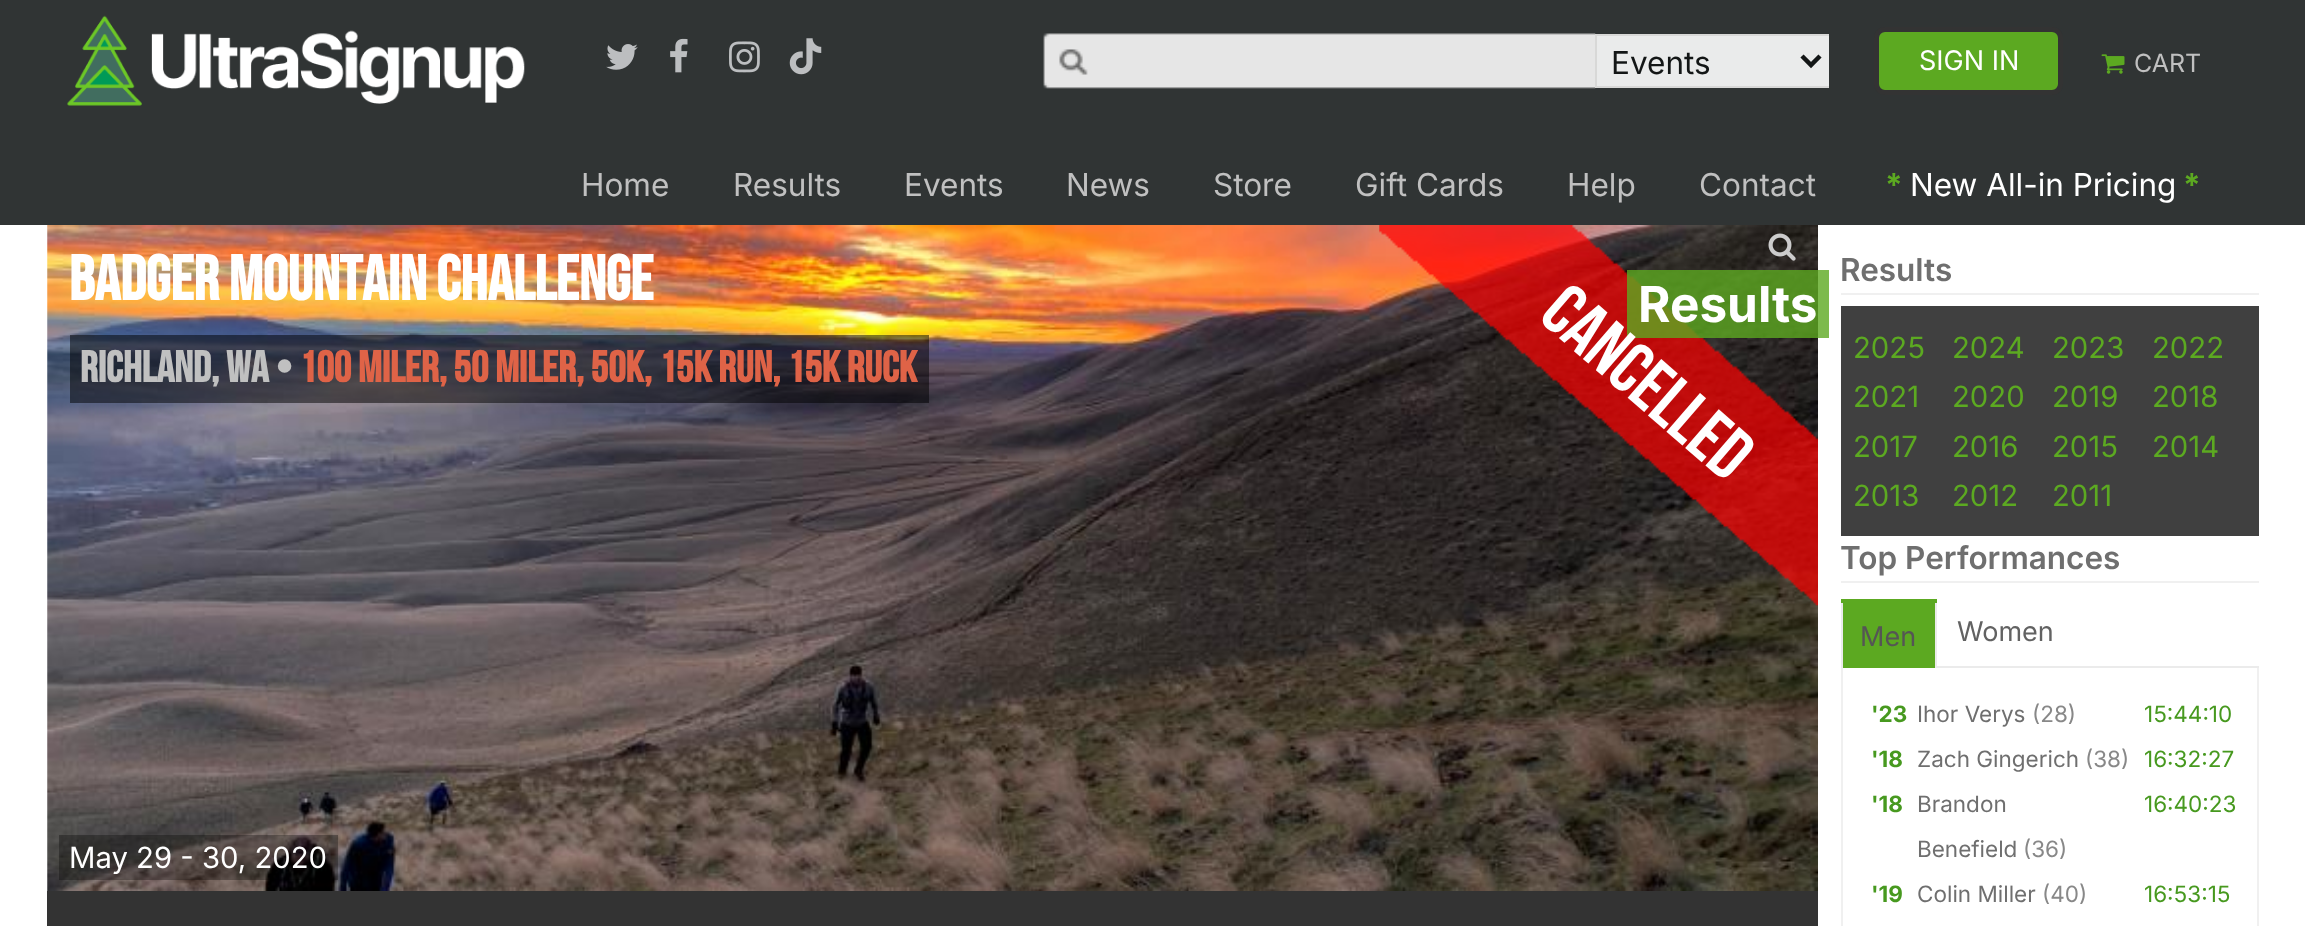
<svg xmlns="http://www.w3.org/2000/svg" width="2305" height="926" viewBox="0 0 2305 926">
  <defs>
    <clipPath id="clip1"><rect x="1573" y="29" width="256" height="61"/></clipPath>
  </defs>
  <rect width="100%" height="100%" fill="#ffffff"/>
  <rect x="0" y="0" width="2305" height="225" fill="#303434"/>
  <image x="67" y="15" width="458" height="91" href="img1.png"/>
  <image x="606" y="44" width="32" height="26" href="img2.png"/>
  <image x="670" y="38" width="18" height="35" href="img3.png"/>
  <image x="729" y="41" width="31" height="32" href="img4.png"/>
  <image x="789" y="38" width="33" height="37" href="img5.png"/>
  <image x="1043" y="33" width="553" height="56" href="img6.png"/>
  <rect x="1597" y="36" width="232" height="50" fill="#eaebeb"/>
  <g clip-path="url(#clip1)">
    <rect x="1596" y="35" width="235" height="52" fill="none" stroke="#d8d8d7" stroke-width="2"/>
  </g>
  <path d="M1802 56L1811 65L1820 56" fill="none" stroke="#131616" stroke-width="4.5"/>
  <text x="1611" y="74" font-family="Inter" font-size="31.5" fill="#131616">Events</text>
  <rect x="1876.5" y="29.5" width="184" height="63" rx="8.5" fill="#5ca921" stroke="#333333" stroke-width="5"/>
  <text x="1919" y="70" font-family="Inter" font-size="27" fill="#ffffff">SIGN IN</text>
  <image x="2101" y="54" width="24" height="20" href="img7.png"/>
  <text x="2134" y="72" font-family="Inter" font-size="25" fill="#c0c0c0">CART</text>
  <text x="581" y="196" font-family="Inter" font-size="31.5" fill="#c0c0c0">Home</text>
  <text x="733" y="196" font-family="Inter" font-size="31.5" fill="#c0c0c0">Results</text>
  <text x="904" y="196" font-family="Inter" font-size="31.5" fill="#c0c0c0">Events</text>
  <text x="1066" y="196" font-family="Inter" font-size="31.5" fill="#c0c0c0">News</text>
  <text x="1213" y="196" font-family="Inter" font-size="31.5" fill="#c0c0c0">Store</text>
  <text x="1355" y="196" font-family="Inter" font-size="31.5" fill="#c0c0c0">Gift Cards</text>
  <text x="1567" y="196" font-family="Inter" font-size="31.5" fill="#c0c0c0">Help</text>
  <text x="1699" y="196" font-family="Inter" font-size="31.5" fill="#c0c0c0">Contact</text>
  <text x="1885" y="196" font-family="Inter" font-size="31.5" font-weight="bold" fill="#5ca921">*</text>
  <text x="1910" y="196" font-family="Inter" font-size="31.5" fill="#ffffff">New All-in Pricing</text>
  <text x="2183" y="196" font-family="Inter" font-size="31.5" font-weight="bold" fill="#5ca921">*</text>
  <image x="47" y="225" width="1771" height="666" href="img8.png"/>
  <text x="69" y="300" font-family="Bebas Neue" font-size="63" font-weight="bold" fill="#ffffff">Badger Mountain Challenge</text>
  <rect x="70" y="335" width="859" height="68" fill="#000000" fill-opacity="0.5"/>
  <text x="80" y="382" font-family="Bebas Neue" font-size="43.9" font-weight="bold" fill="#c0c0c0">Richland, WA •</text>
  <text x="299" y="382" font-family="Bebas Neue" font-size="43.9" font-weight="bold" fill="#df6347">100 Miler, 50 Miler, 50K, 15K Run, 15K Ruck</text>
  <image x="1379" y="225" width="439" height="381" href="img9.png"/>
  <image x="1768" y="233" width="28" height="28" href="img10.png"/>
  <rect x="1627" y="270" width="202" height="68" fill="#5ca921" fill-opacity="0.8"/>
  <text x="1638" y="322" font-family="Inter" font-size="49.5" font-weight="bold" fill="#ffffff">Results</text>
  <text x="1537" y="319" transform="rotate(41 1537 319)" font-family="Bebas Neue" font-size="73" fill="#ffffff">Cancelled</text>
  <rect x="59" y="835" width="279" height="45" fill="#000000" fill-opacity="0.3"/>
  <text x="69" y="868" font-family="Inter" font-size="29.25" fill="#ffffff">May 29 - 30, 2020</text>
  <rect x="47" y="891" width="1771" height="35" fill="#333333"/>
  <rect x="1841" y="293" width="418" height="2" fill="#f0f0f0"/>
  <text x="1840" y="281" font-family="Inter" font-size="31.5" font-weight="600" fill="#6f6f6f">Results</text>
  <rect x="1841" y="306" width="418" height="230" fill="#404040"/>
  <text x="1853" y="358" font-family="Inter" font-size="29.25" fill="#5ca921">2025</text>
  <text x="1952" y="358" font-family="Inter" font-size="29.25" fill="#5ca921">2024</text>
  <text x="2052" y="358" font-family="Inter" font-size="29.25" fill="#5ca921">2023</text>
  <text x="2152" y="358" font-family="Inter" font-size="29.25" fill="#5ca921">2022</text>
  <text x="1853" y="407" font-family="Inter" font-size="29.25" fill="#5ca921">2021</text>
  <text x="1952" y="407" font-family="Inter" font-size="29.25" fill="#5ca921">2020</text>
  <text x="2052" y="407" font-family="Inter" font-size="29.25" fill="#5ca921">2019</text>
  <text x="2152" y="407" font-family="Inter" font-size="29.25" fill="#5ca921">2018</text>
  <text x="1853" y="457" font-family="Inter" font-size="29.25" fill="#5ca921">2017</text>
  <text x="1952" y="457" font-family="Inter" font-size="29.25" fill="#5ca921">2016</text>
  <text x="2052" y="457" font-family="Inter" font-size="29.25" fill="#5ca921">2015</text>
  <text x="2152" y="457" font-family="Inter" font-size="29.25" fill="#5ca921">2014</text>
  <text x="1853" y="506" font-family="Inter" font-size="29.25" fill="#5ca921">2013</text>
  <text x="1952" y="506" font-family="Inter" font-size="29.25" fill="#5ca921">2012</text>
  <text x="2052" y="506" font-family="Inter" font-size="29.25" fill="#5ca921">2011</text>
  <rect x="1841" y="581" width="418" height="2" fill="#f0f0f0"/>
  <text x="1840" y="569" font-family="Inter" font-size="31.5" font-weight="600" fill="#6f6f6f">Top Performances</text>
  <rect x="1937" y="666" width="322" height="2" fill="#ebebeb"/>
  <rect x="1841" y="599" width="96" height="4" fill="#5ca921"/>
  <rect x="1843" y="603" width="92" height="65" fill="#5ca921"/>
  <rect x="1935" y="603" width="2" height="65" fill="#ebebeb"/>
  <rect x="1841" y="603" width="2" height="65" fill="#ebebeb"/>
  <text x="1860" y="646" font-family="Inter" font-size="27" fill="#555555">Men</text>
  <text x="1957" y="641" font-family="Inter" font-size="27" fill="#626262">Women</text>
  <rect x="2257" y="668" width="2" height="258" fill="#f0f0f0"/>
  <rect x="1841" y="668" width="2" height="258" fill="#f0f0f0"/>
  <text x="1871" y="722" font-family="Inter" font-size="22.5" font-weight="bold" fill="#47991f">'23</text>
  <text x="1917" y="722" font-family="Inter" font-size="22.5" fill="#6f6f6f">Ihor Verys</text>
  <text x="2032" y="722" font-family="Inter" font-size="22.5" fill="#888888">(28)</text>
  <text x="2144" y="722" font-family="Inter" font-size="22.5" fill="#47991f">15:44:10</text>
  <text x="1871" y="767" font-family="Inter" font-size="22.5" font-weight="bold" fill="#47991f">'18</text>
  <text x="1917" y="767" font-family="Inter" font-size="22.5" fill="#6f6f6f">Zach Gingerich</text>
  <text x="2085" y="767" font-family="Inter" font-size="22.5" fill="#888888">(38)</text>
  <text x="2144" y="767" font-family="Inter" font-size="22.5" fill="#47991f">16:32:27</text>
  <text x="1871" y="812" font-family="Inter" font-size="22.5" font-weight="bold" fill="#47991f">'18</text>
  <text x="1917" y="812" font-family="Inter" font-size="22.5" fill="#6f6f6f">Brandon</text>
  <text x="1917" y="857" font-family="Inter" font-size="22.5" fill="#6f6f6f">Benefield</text>
  <text x="2023" y="857" font-family="Inter" font-size="22.5" fill="#888888">(36)</text>
  <text x="2144" y="812" font-family="Inter" font-size="22.5" fill="#47991f">16:40:23</text>
  <text x="1871" y="902" font-family="Inter" font-size="22.5" font-weight="bold" fill="#47991f">'19</text>
  <text x="1917" y="902" font-family="Inter" font-size="22.5" fill="#6f6f6f">Colin Miller</text>
  <text x="2042" y="902" font-family="Inter" font-size="22.5" fill="#888888">(40)</text>
  <text x="2144" y="902" font-family="Inter" font-size="22.5" fill="#47991f">16:53:15</text>
</svg>
